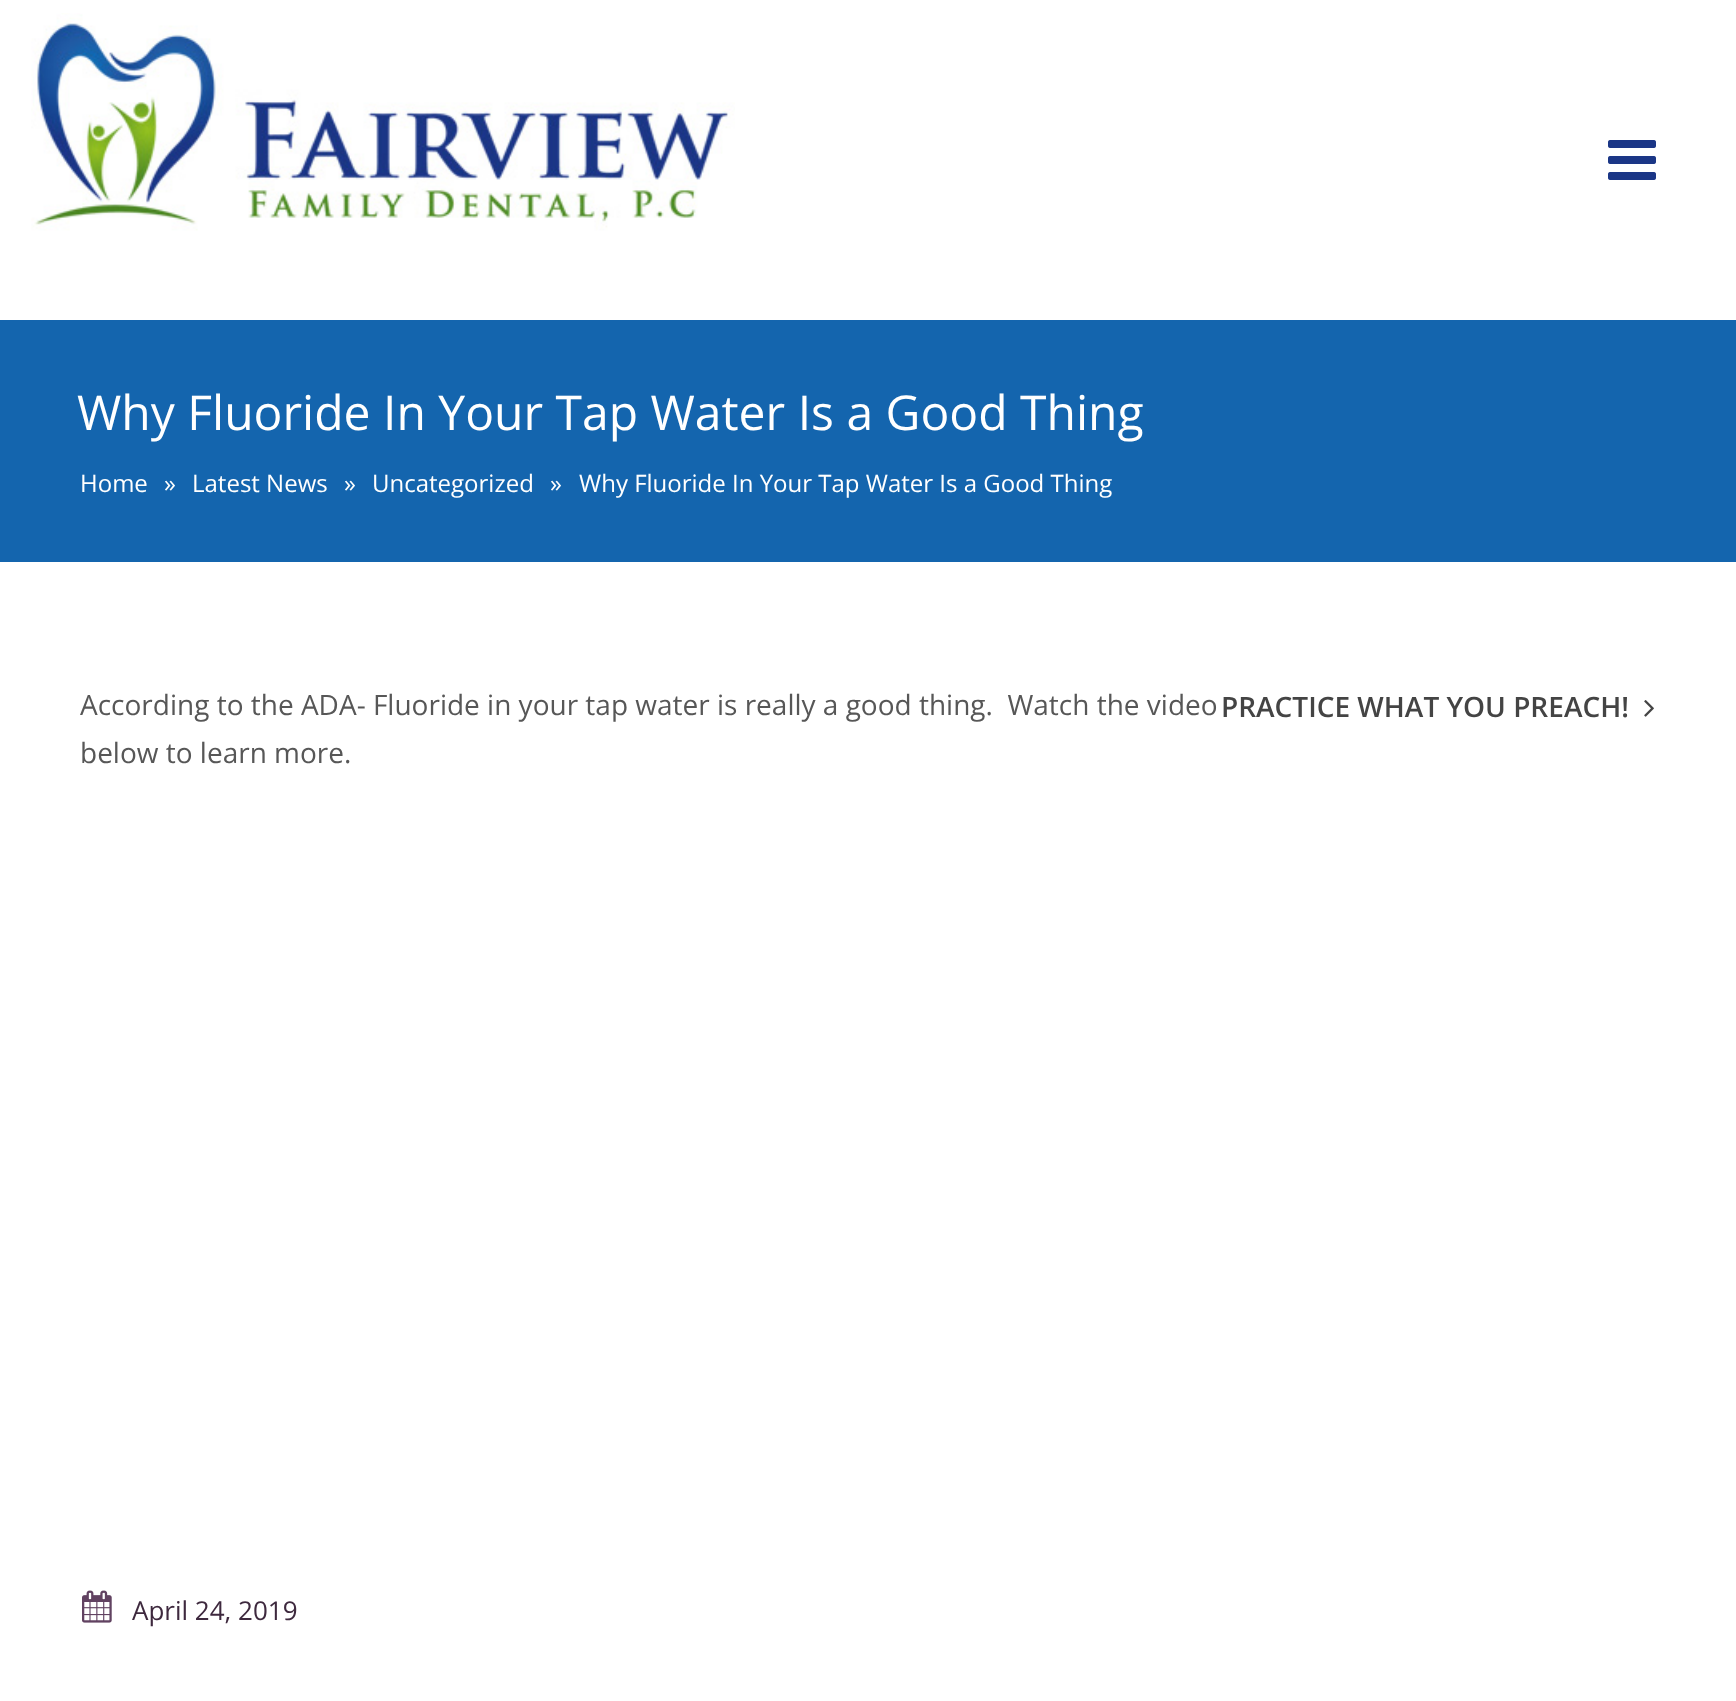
<svg xmlns="http://www.w3.org/2000/svg" width="1736" height="1701" viewBox="0 0 1736 1701">
  <rect width="100%" height="100%" fill="#ffffff"/>
  <image x="31" y="13" width="704" height="218" href="img1.png"/>
  <image x="1608" y="140" width="48" height="40" href="img2.png"/>
  <rect x="0" y="320" width="1736" height="242" fill="#1465ae"/>
  <text x="77" y="430" font-family="Open Sans" font-size="48" fill="#ffffff">Why Fluoride In Your Tap Water Is a Good Thing</text>
  <text x="80" y="492" font-family="Open Sans" font-size="24" fill="#ffffff">Home</text>
  <text x="164" y="492" font-family="Open Sans" font-size="24" fill="#ffffff">»</text>
  <text x="192" y="492" font-family="Open Sans" font-size="24" fill="#ffffff">Latest News</text>
  <text x="344" y="492" font-family="Open Sans" font-size="24" fill="#ffffff">»</text>
  <text x="372" y="492" font-family="Open Sans" font-size="24" fill="#ffffff">Uncategorized</text>
  <text x="550" y="492" font-family="Open Sans" font-size="24" fill="#ffffff">»</text>
  <text x="579" y="492" font-family="Open Sans" font-size="24" fill="#ffffff">Why Fluoride In Your Tap Water Is a Good Thing</text>
  <text x="80" y="715" font-family="Open Sans" font-size="28" fill="#575757" xml:space="preserve">According to the ADA- Fluoride in your tap water is really a good thing.  Watch the video</text>
  <text x="80" y="763" font-family="Open Sans" font-size="28" fill="#575757">below to learn more.</text>
  <text x="1221" y="717" font-family="Open Sans" font-size="28" font-weight="600" fill="#444444">PRACTICE WHAT YOU PREACH!</text>
  <image x="1644" y="700" width="10" height="17" href="img3.png"/>
  <image x="82" y="1590" width="30" height="33" href="img4.png"/>
  <text x="132" y="1620" font-family="Open Sans" font-size="26" fill="#3e293e">April 24, 2019</text>
</svg>
